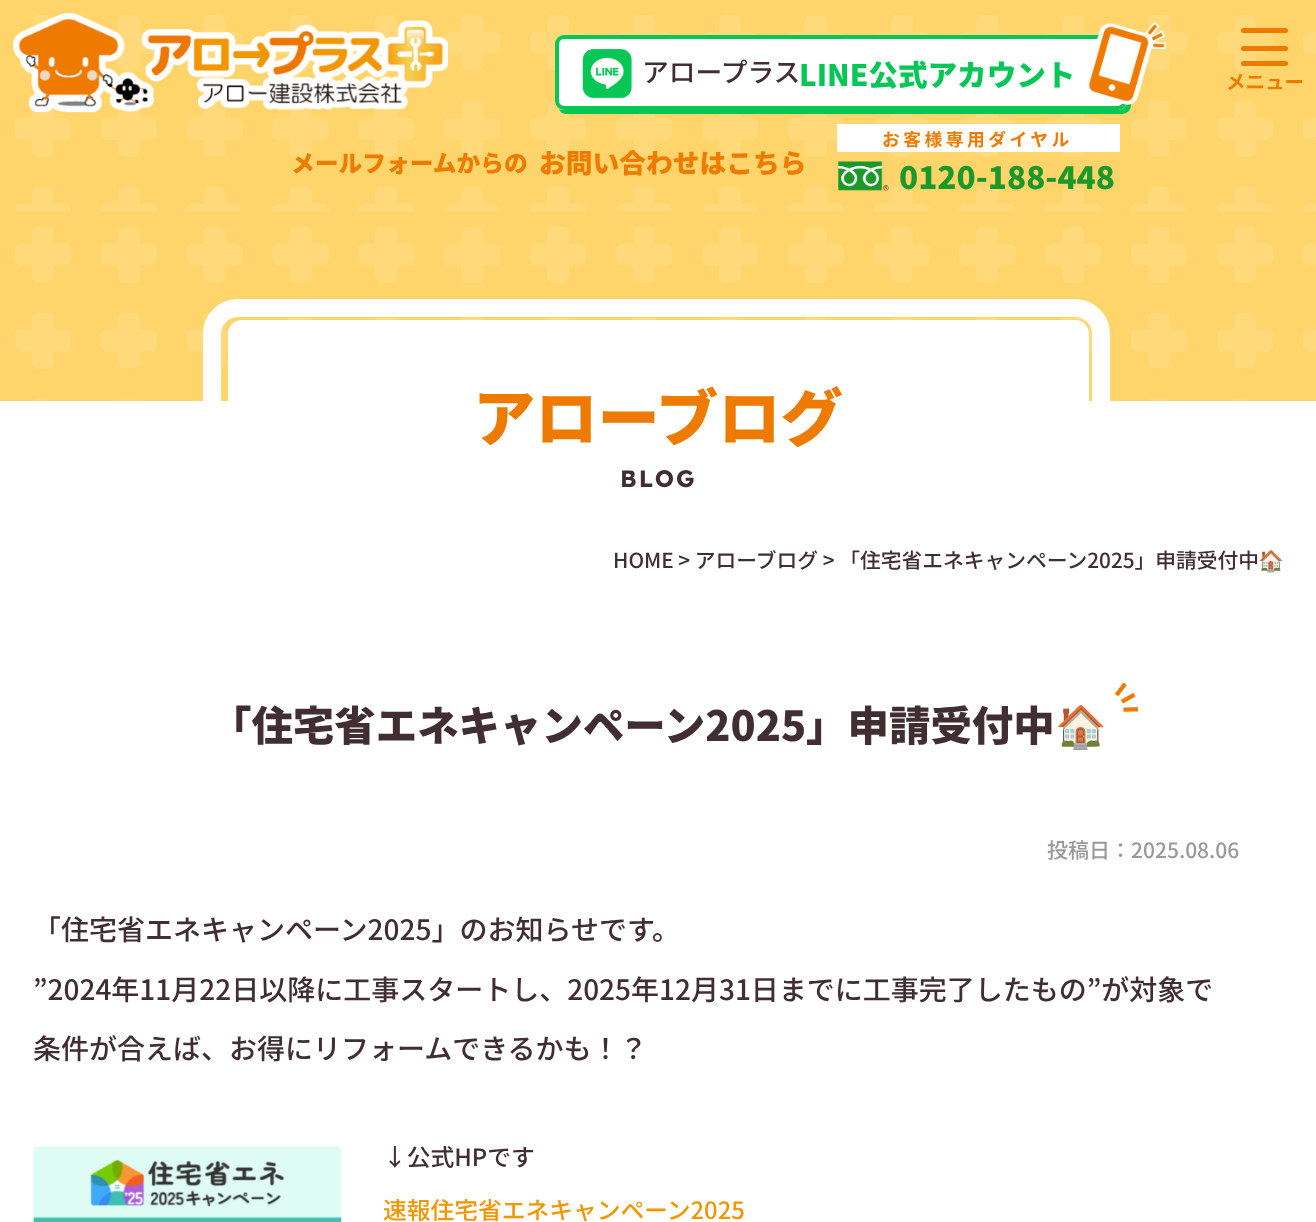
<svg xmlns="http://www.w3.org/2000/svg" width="1316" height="1222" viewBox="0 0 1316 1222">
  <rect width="100%" height="100%" fill="#ffffff"/>
  <rect x="0" y="0" width="1316" height="401" fill="#ffd46a"/>
  <image x="15" y="15" width="1301" height="197" href="img1.png"/>
  <path d="M559 109C560 112 563 114 567 114H1122C1127 114 1131 110 1131 105V48C1131 45 1129 42 1126 40L1127 44V102C1127 106 1123 110 1118 110H564C562 110 560 110 559 109Z" fill="#06c755"/>
  <rect x="557" y="37" width="568" height="71" rx="7" fill="#ffffff" stroke="#06c755" stroke-width="4"/>
  <image x="582" y="49" width="50" height="50" href="img2.png"/>
  <text x="642" y="82" font-family="Noto Sans JP" font-size="26.75" font-weight="500" fill="#402e32">アロープラス</text>
  <text x="799" y="86" font-family="Noto Sans JP" font-size="29.6" font-weight="900" fill="#06c755">LINE公式アカウント</text>
  <image x="1088" y="22" width="78" height="83" href="img3.png"/>
  <text x="291" y="172" font-family="Noto Sans JP" font-size="23.75" font-weight="900" fill="#ee7a00">メールフォームからの</text>
  <text x="539" y="173" font-family="Noto Sans JP" font-size="26.75" font-weight="900" fill="#ee7a00">お問い合わせはこちら</text>
  <rect x="837" y="124" width="283" height="28" fill="#ffffff"/>
  <text x="882" y="146" font-family="Noto Sans JP" font-size="17.75" font-weight="bold" letter-spacing="3.5" fill="#ee7a00">お客様専用ダイヤル</text>
  <image x="838" y="161" width="51" height="30" href="img4.png"/>
  <text x="899" y="189" font-family="Noto Sans JP" font-size="31.5" font-weight="900" fill="#1b982a">0120-188-448</text>
  <image x="13" y="13" width="436" height="100" href="img5.png"/>
  <rect x="1241" y="28" width="47" height="5" rx="2.5" fill="#ee7a00"/>
  <rect x="1241" y="46" width="47" height="5" rx="2.5" fill="#ee7a00"/>
  <rect x="1241" y="61" width="47" height="5" rx="2.5" fill="#ee7a00"/>
  <text x="1226" y="89" font-family="Noto Sans JP" font-size="19.5" font-weight="bold" fill="#ee7a00">メニュー</text>
  <image x="15" y="226" width="1301" height="175" href="img6.png"/>
  <rect x="228" y="320" width="861" height="175" rx="14" fill="#ffffff"/>
  <rect x="212" y="308" width="889" height="203" rx="26" fill="none" stroke="#ffffff" stroke-width="18"/>
  <text x="473" y="441" font-family="Noto Sans JP" font-size="62.25" font-weight="900" fill="#ee7a00">アローブログ</text>
  <text x="620" y="487" font-family="Lexend" font-size="23.75" font-weight="bold" letter-spacing="2" fill="#402e32">BLOG</text>
  <text x="613" y="568" font-family="Noto Sans JP" font-size="20.75" font-weight="500" fill="#402e32">HOME &gt; アローブログ &gt; 「住宅省エネキャンペーン2025」申請受付中</text>
  <text x="1258" y="568" font-family="Noto Color Emoji" font-size="20.75" fill="#402e32">🏠</text>
  <image x="1114" y="682" width="25" height="31" href="img7.png"/>
  <text x="210" y="741" font-family="Noto Sans JP" font-size="41.45" font-weight="900" fill="#402e32">「住宅省エネキャンペーン2025」申請受付中</text>
  <text x="1055" y="741" font-family="Noto Color Emoji" font-size="41.45" font-weight="bold" fill="#402e32">🏠</text>
  <text x="1047" y="858" font-family="Noto Sans JP" font-size="21" font-weight="500" fill="#999999">投稿日：2025.08.06</text>
  <text x="33" y="940" font-family="Noto Sans JP" font-size="28" font-weight="500" fill="#402e32">「住宅省エネキャンペーン2025」のお知らせです。</text>
  <text x="33" y="1000" font-family="Noto Sans JP" font-size="28" font-weight="500" fill="#402e32">”2024年11月22日以降に工事スタートし、2025年12月31日までに工事完了したもの”が対象で</text>
  <text x="33" y="1059" font-family="Noto Sans JP" font-size="28" font-weight="500" fill="#402e32">条件が合えば、お得にリフォームできるかも！？</text>
  <image x="33" y="1146" width="309" height="76" href="img8.png"/>
  <text x="383" y="1166" font-family="Noto Sans JP" font-size="23.75" font-weight="500" fill="#402e32">↓公式HPです</text>
  <text x="383" y="1219" font-family="Noto Sans JP" font-size="23.75" font-weight="500" fill="#f29600">速報住宅省エネキャンペーン2025</text>
</svg>
